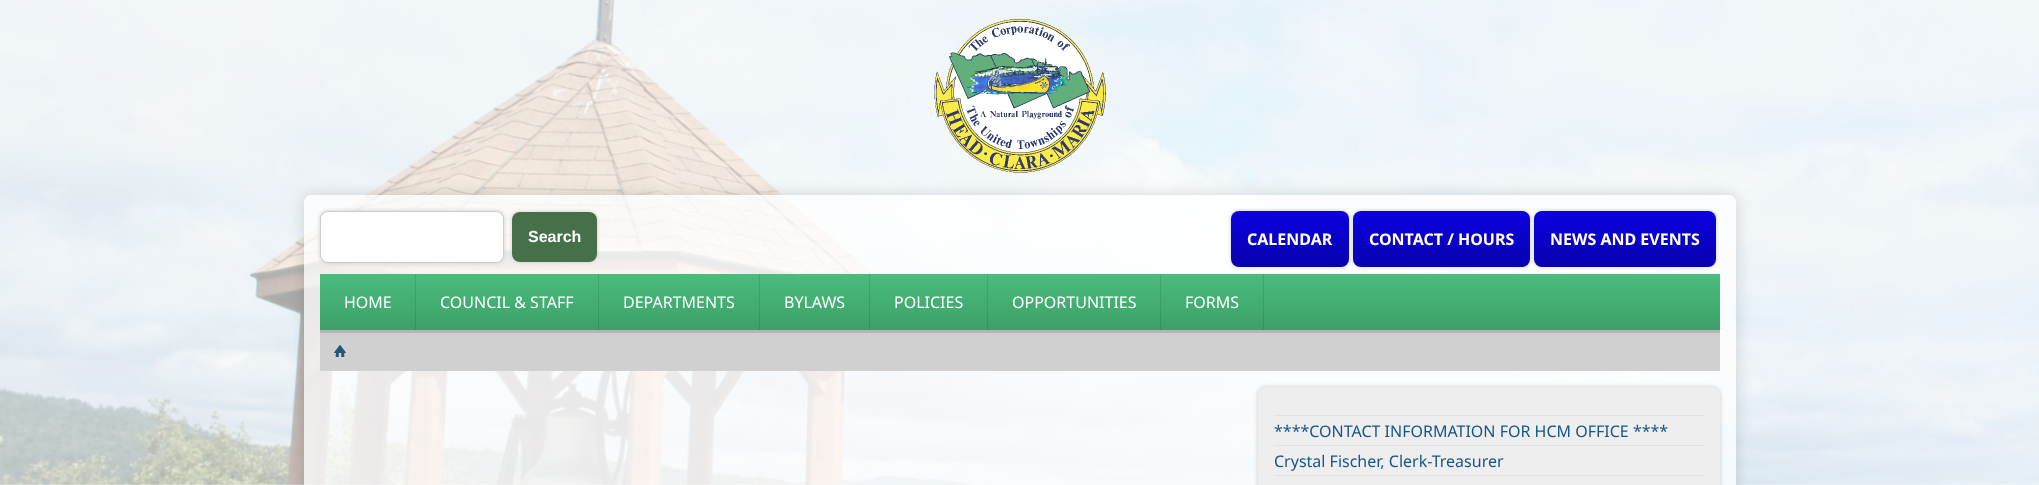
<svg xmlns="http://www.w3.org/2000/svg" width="2039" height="485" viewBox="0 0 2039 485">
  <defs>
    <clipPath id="clip1"><path d="M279 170H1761V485H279ZM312 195H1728C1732.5 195 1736 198.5 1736 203V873C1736 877.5 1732.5 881 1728 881H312C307.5 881 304 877.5 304 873V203C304 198.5 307.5 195 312 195Z" clip-rule="evenodd"/></clipPath>
    <filter id="blur1" x="-50%" y="-200%" width="200%" height="500%"><feGaussianBlur stdDeviation="8"/></filter>
    <filter id="blur2" x="-50%" y="-200%" width="200%" height="500%"><feGaussianBlur stdDeviation="2"/></filter>
    <linearGradient id="g1" gradientUnits="userSpaceOnUse" x1="1625" y1="211" x2="1625" y2="267"><stop offset="0" stop-color="#0a00e1"/><stop offset="1" stop-color="#0901ad"/></linearGradient>
    <linearGradient id="g2" gradientUnits="userSpaceOnUse" x1="1442" y1="211" x2="1442" y2="267"><stop offset="0" stop-color="#0a00e1"/><stop offset="1" stop-color="#0901ad"/></linearGradient>
    <linearGradient id="g3" gradientUnits="userSpaceOnUse" x1="1290" y1="211" x2="1290" y2="267"><stop offset="0" stop-color="#0a00e1"/><stop offset="1" stop-color="#0901ad"/></linearGradient>
    <linearGradient id="g4" gradientUnits="userSpaceOnUse" x1="1020" y1="274" x2="1020" y2="330"><stop offset="0" stop-color="#4abd7c"/><stop offset="1" stop-color="#3da068"/></linearGradient>
  </defs>
  <rect width="100%" height="100%" fill="#ffffff"/>
  <image x="0" y="0" width="2039" height="485" href="img1.png"/>
  <image x="934" y="19" width="172" height="154" href="img2.png"/>
  <g clip-path="url(#clip1)">
    <rect x="304" y="195" width="1432" height="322" rx="8" fill="#000000" fill-opacity="0.15" filter="url(#blur1)"/>
  </g>
  <rect x="304" y="195" width="1432" height="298" rx="8" fill="#ffffff" fill-opacity="0.75"/>
  <rect x="320" y="211" width="184" height="52" rx="8" fill="#cccccc" filter="url(#blur2)"/>
  <rect x="320.5" y="211.5" width="183" height="51" rx="7.5" fill="#ffffff" stroke="#cccccc"/>
  <rect x="512" y="212" width="85" height="50" rx="8" fill="#cccccc" filter="url(#blur2)"/>
  <rect x="512" y="212" width="85" height="50" rx="8" fill="#467048"/>
  <text x="528" y="242" font-family="Liberation Sans" font-size="16" font-weight="bold" fill="#ffffff">Search</text>
  <rect x="1534" y="211" width="182" height="56" rx="8" fill="#cccccc" filter="url(#blur2)"/>
  <rect x="1534" y="211" width="182" height="56" rx="8" fill="url(#g1)"/>
  <rect x="1353" y="211" width="177" height="56" rx="8" fill="#cccccc" filter="url(#blur2)"/>
  <rect x="1353" y="211" width="177" height="56" rx="8" fill="url(#g2)"/>
  <rect x="1231" y="211" width="118" height="56" rx="8" fill="#cccccc" filter="url(#blur2)"/>
  <rect x="1231" y="211" width="118" height="56" rx="8" fill="url(#g3)"/>
  <text x="1247" y="245" font-family="Noto Sans" font-size="16" font-weight="bold" fill="#ffffff">CALENDAR</text>
  <text x="1369" y="245" font-family="Noto Sans" font-size="16" font-weight="bold" fill="#ffffff">CONTACT / HOURS</text>
  <text x="1550" y="245" font-family="Noto Sans" font-size="16" font-weight="bold" fill="#ffffff">NEWS AND EVENTS</text>
  <rect x="320" y="274" width="1400" height="56" fill="url(#g4)"/>
  <rect x="415" y="274" width="1" height="56" fill="#000000" fill-opacity="0.1"/>
  <text x="344" y="308" font-family="Noto Sans" font-size="16" fill="#ffffff">HOME</text>
  <rect x="598" y="274" width="1" height="56" fill="#000000" fill-opacity="0.1"/>
  <text x="440" y="308" font-family="Noto Sans" font-size="16" fill="#ffffff">COUNCIL &amp; STAFF</text>
  <rect x="759" y="274" width="1" height="56" fill="#000000" fill-opacity="0.1"/>
  <text x="623" y="308" font-family="Noto Sans" font-size="16" fill="#ffffff">DEPARTMENTS</text>
  <rect x="869" y="274" width="1" height="56" fill="#000000" fill-opacity="0.1"/>
  <text x="784" y="308" font-family="Noto Sans" font-size="16" fill="#ffffff">BYLAWS</text>
  <rect x="987" y="274" width="1" height="56" fill="#000000" fill-opacity="0.1"/>
  <text x="894" y="308" font-family="Noto Sans" font-size="16" fill="#ffffff">POLICIES</text>
  <rect x="1160" y="274" width="1" height="56" fill="#000000" fill-opacity="0.1"/>
  <text x="1012" y="308" font-family="Noto Sans" font-size="16" fill="#ffffff">OPPORTUNITIES</text>
  <rect x="1263" y="274" width="1" height="56" fill="#000000" fill-opacity="0.1"/>
  <text x="1185" y="308" font-family="Noto Sans" font-size="16" fill="#ffffff">FORMS</text>
  <rect x="320" y="333" width="1400" height="38" fill="#d0d0d0"/>
  <rect x="320" y="330" width="1400" height="3" fill="#b5b5b5"/>
  <image x="334" y="345" width="12" height="12" href="img3.png"/>
  <rect x="1258" y="387" width="462" height="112" rx="8" fill="#000000" fill-opacity="0.2" filter="url(#blur2)"/>
  <rect x="1258" y="387" width="462" height="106" rx="8" fill="#eeeeee"/>
  <rect x="1274" y="415" width="430" height="1" fill="#e2e2e2"/>
  <text x="1274" y="437" font-family="Noto Sans" font-size="16" fill="#155589">****CONTACT INFORMATION FOR HCM OFFICE ****</text>
  <rect x="1274" y="445" width="430" height="1" fill="#e2e2e2"/>
  <text x="1274" y="467" font-family="Noto Sans" font-size="16" fill="#155589">Crystal Fischer, Clerk-Treasurer</text>
  <rect x="1274" y="475" width="430" height="1" fill="#e2e2e2"/>
</svg>
